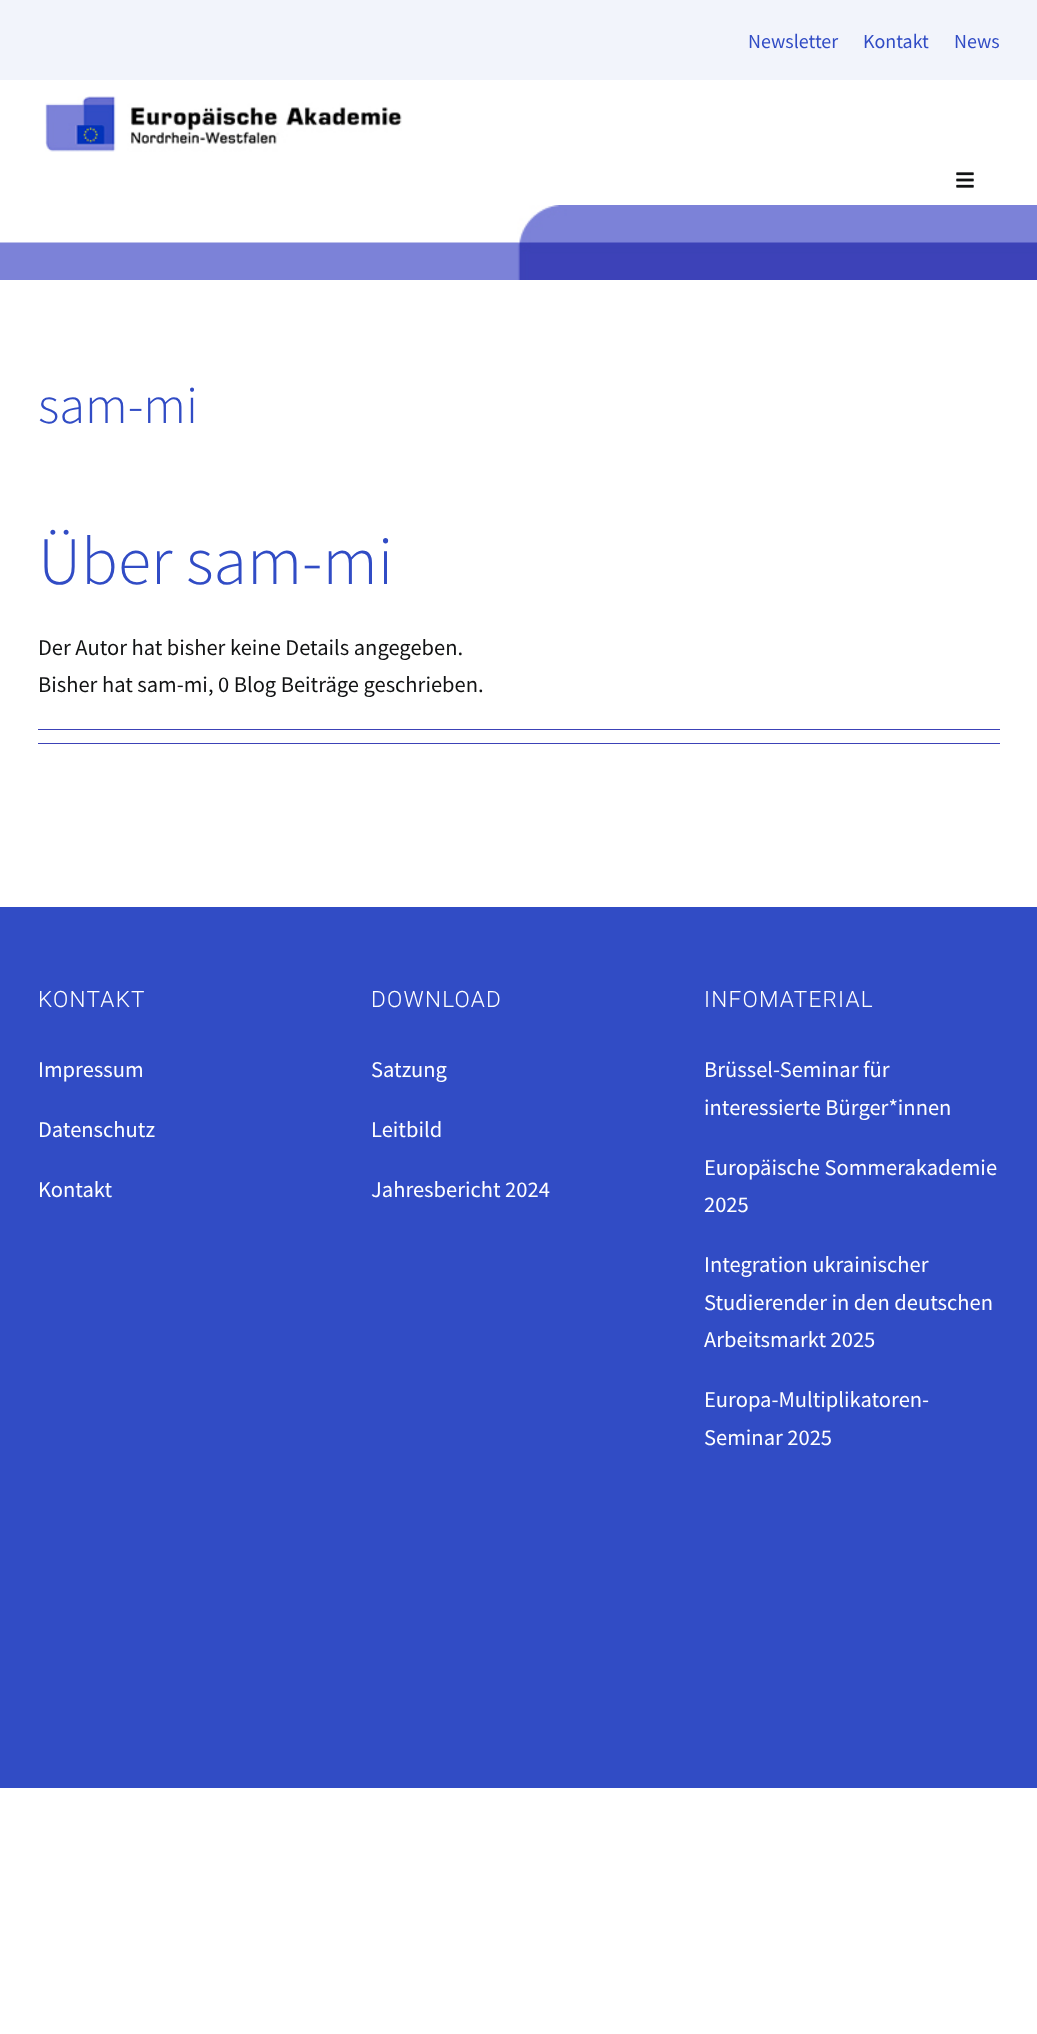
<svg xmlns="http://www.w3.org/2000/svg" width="1037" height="2034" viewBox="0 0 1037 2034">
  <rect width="100%" height="100%" fill="#ffffff"/>
  <rect x="0" y="0" width="1037" height="80" fill="#f2f4fb"/>
  <text x="748" y="48" font-family="Source Sans Pro" font-size="20" fill="#314cc5">Newsletter</text>
  <text x="863" y="48" font-family="Source Sans Pro" font-size="20" fill="#314cc5">Kontakt</text>
  <text x="954" y="48" font-family="Source Sans Pro" font-size="20" fill="#314cc5">News</text>
  <image x="45" y="96" width="357" height="56" href="img1.png"/>
  <image x="956" y="172" width="18" height="16" href="img2.png"/>
  <image x="0" y="205" width="1037" height="75" href="img3.png"/>
  <text x="38" y="423" font-family="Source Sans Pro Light" font-size="52.5" font-weight="300" fill="#314cc5">sam-mi</text>
  <text x="38" y="584" font-family="Source Sans Pro Light" font-size="68" font-weight="300" fill="#314cc5">Über sam-mi</text>
  <text x="38" y="655" font-family="Source Sans Pro" font-size="22.5" fill="#121314">Der Autor hat bisher keine Details angegeben.</text>
  <text x="38" y="692" font-family="Source Sans Pro" font-size="22.5" fill="#121314">Bisher hat sam-mi, 0 Blog Beiträge geschrieben.</text>
  <rect x="38" y="729" width="962" height="1" fill="#3c42b7"/>
  <rect x="38" y="743" width="962" height="1" fill="#3c42b7"/>
  <rect x="0" y="907" width="1037" height="881" fill="#314cc5"/>
  <text x="38" y="1007" font-family="Roboto" font-size="22.5" font-weight="300" letter-spacing="1.25" fill="#ffffff">KONTAKT</text>
  <text x="38" y="1077" font-family="Source Sans Pro" font-size="22.5" fill="#ffffff">Impressum</text>
  <text x="38" y="1137" font-family="Source Sans Pro" font-size="22.5" fill="#ffffff">Datenschutz</text>
  <text x="38" y="1197" font-family="Source Sans Pro" font-size="22.5" fill="#ffffff">Kontakt</text>
  <text x="371" y="1007" font-family="Roboto" font-size="22.5" font-weight="300" letter-spacing="1.25" fill="#ffffff">DOWNLOAD</text>
  <text x="371" y="1077" font-family="Source Sans Pro" font-size="22.5" fill="#ffffff">Satzung</text>
  <text x="371" y="1137" font-family="Source Sans Pro" font-size="22.5" fill="#ffffff">Leitbild</text>
  <text x="371" y="1197" font-family="Source Sans Pro" font-size="22.5" fill="#ffffff">Jahresbericht 2024</text>
  <text x="704" y="1007" font-family="Roboto" font-size="22.5" font-weight="300" letter-spacing="1.25" fill="#ffffff">INFOMATERIAL</text>
  <text x="704" y="1077" font-family="Source Sans Pro" font-size="22.5" fill="#ffffff">Brüssel-Seminar für</text>
  <text x="704" y="1115" font-family="Source Sans Pro" font-size="22.5" fill="#ffffff">interessierte Bürger*innen</text>
  <text x="704" y="1175" font-family="Source Sans Pro" font-size="22.5" fill="#ffffff">Europäische Sommerakademie</text>
  <text x="704" y="1212" font-family="Source Sans Pro" font-size="22.5" fill="#ffffff">2025</text>
  <text x="704" y="1272" font-family="Source Sans Pro" font-size="22.5" fill="#ffffff">Integration ukrainischer</text>
  <text x="704" y="1310" font-family="Source Sans Pro" font-size="22.5" fill="#ffffff">Studierender in den deutschen</text>
  <text x="704" y="1347" font-family="Source Sans Pro" font-size="22.5" fill="#ffffff">Arbeitsmarkt 2025</text>
  <text x="704" y="1407" font-family="Source Sans Pro" font-size="22.5" fill="#ffffff">Europa-Multiplikatoren-</text>
  <text x="704" y="1445" font-family="Source Sans Pro" font-size="22.5" fill="#ffffff">Seminar 2025</text>
</svg>
